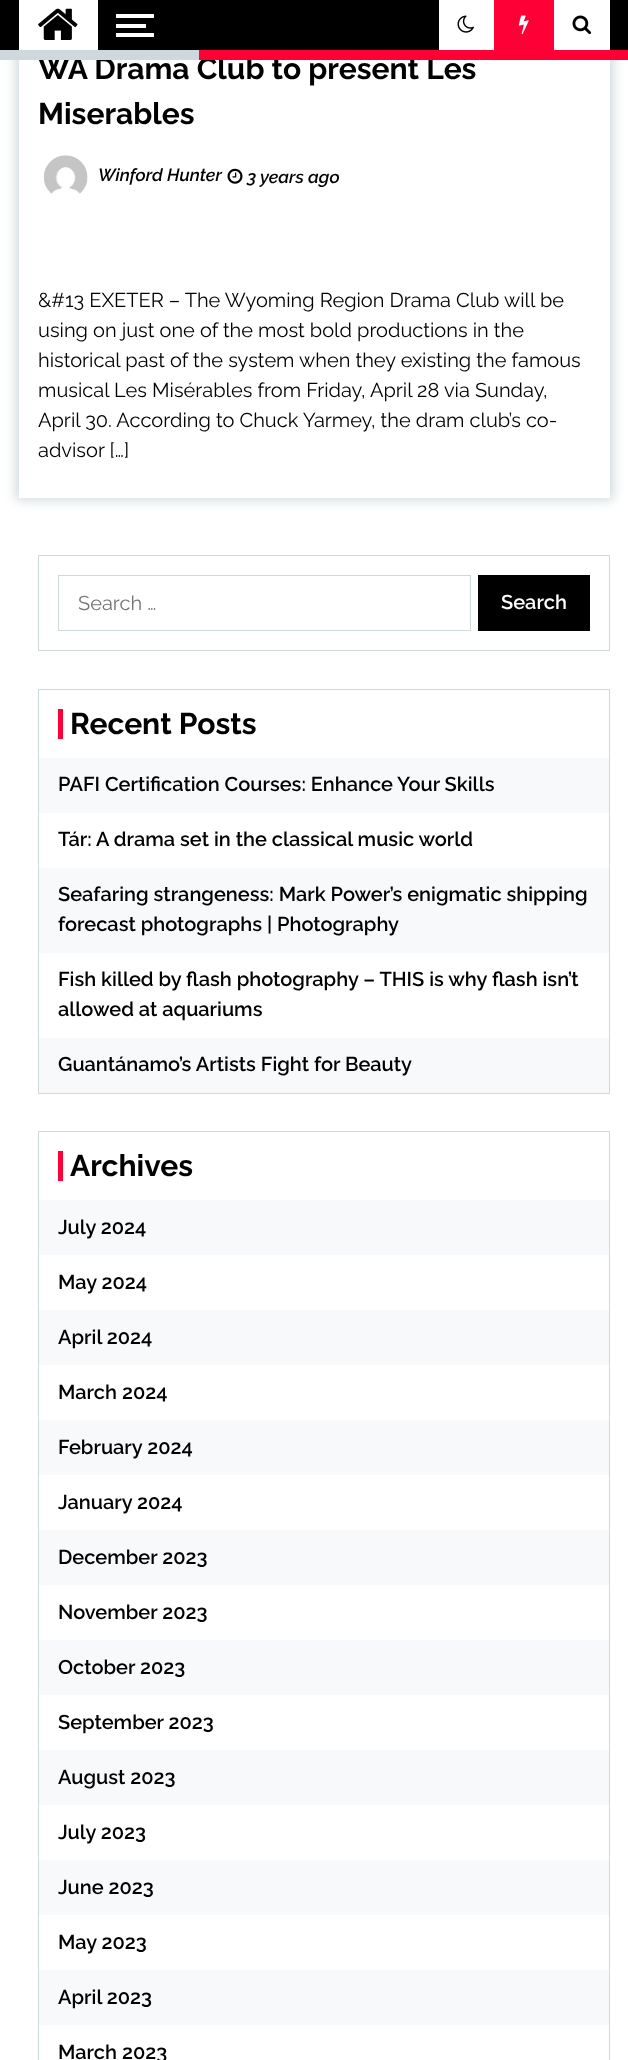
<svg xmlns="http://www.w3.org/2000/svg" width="628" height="2060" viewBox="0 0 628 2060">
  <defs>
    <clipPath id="clip1"><path d="M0 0H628V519H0ZM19-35H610V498H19Z" clip-rule="evenodd"/></clipPath>
    <filter id="blur1" x="-50%" y="-200%" width="200%" height="500%"><feGaussianBlur stdDeviation="6"/></filter>
  </defs>
  <rect width="100%" height="100%" fill="#ffffff"/>
  <g clip-path="url(#clip1)">
    <rect x="16" y="-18" width="597" height="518" fill="#cfd8dc" filter="url(#blur1)"/>
  </g>
  <rect x="0" y="0" width="628" height="50" fill="#000000"/>
  <rect x="19" y="0" width="79" height="50" fill="#ffffff"/>
  <image x="38" y="8" width="40" height="32" href="img1.png"/>
  <rect x="116" y="14" width="38" height="4" fill="#ffffff"/>
  <rect x="116" y="33" width="38" height="4" fill="#ffffff"/>
  <rect x="116" y="24" width="30" height="4" fill="#ffffff"/>
  <rect x="439" y="0" width="55" height="50" fill="#ffffff"/>
  <image x="457" y="15" width="17" height="18" href="img2.png"/>
  <rect x="494" y="0" width="60" height="50" fill="#ff0036"/>
  <image x="518" y="15" width="11" height="20" href="img3.png"/>
  <rect x="554" y="0" width="56" height="50" fill="#ffffff"/>
  <image x="572" y="15" width="20" height="20" href="img4.png"/>
  <text x="38" y="79" font-family="Raleway" font-size="30" font-weight="bold" fill="#000000">WA Drama Club to present Les</text>
  <rect x="0" y="50" width="199" height="10" fill="#cfd8dc"/>
  <rect x="199" y="50" width="429" height="10" fill="#ff0036"/>
  <text x="38" y="124" font-family="Raleway" font-size="30" font-weight="bold" fill="#000000">Miserables</text>
  <image x="43" y="155" width="45" height="39" href="img5.png"/>
  <text x="98" y="181" font-family="Raleway" font-size="17.5" font-weight="600" font-style="italic" fill="#000000">Winford Hunter</text>
  <image x="227" y="168" width="16" height="16" href="img6.png"/>
  <text x="247" y="183" font-family="Raleway" font-size="17.5" font-weight="600" font-style="italic" fill="#000000">3 years ago</text>
  <text x="38" y="307" font-family="Raleway" font-size="20" fill="#000000">&amp;#13 EXETER – The Wyoming Region Drama Club will be</text>
  <text x="38" y="337" font-family="Raleway" font-size="20" fill="#000000">using on just one of the most bold productions in the</text>
  <text x="38" y="367" font-family="Raleway" font-size="20" fill="#000000">historical past of the system when they existing the famous</text>
  <text x="38" y="397" font-family="Raleway" font-size="20" fill="#000000">musical Les Misérables from Friday, April 28 via Sunday,</text>
  <text x="38" y="427" font-family="Raleway" font-size="20" fill="#000000">April 30. According to Chuck Yarmey, the dram club’s co-</text>
  <text x="38" y="457" font-family="Raleway" font-size="20" fill="#000000">advisor […]</text>
  <rect x="38.5" y="555.5" width="571" height="95" fill="none" stroke="#cfd8dc"/>
  <rect x="58.5" y="575.5" width="412" height="55" fill="none" stroke="#cfd8dc"/>
  <text x="78" y="610" font-family="Raleway" font-size="20" fill="#757575">Search …</text>
  <rect x="478" y="575" width="112" height="56" fill="#000000"/>
  <text x="501" y="609" font-family="Raleway" font-size="20" font-weight="600" fill="#ffffff">Search</text>
  <rect x="38.5" y="689.5" width="571" height="404" fill="none" stroke="#cfd8dc"/>
  <rect x="58" y="709" width="5" height="30" fill="#ff0036"/>
  <text x="70" y="734" font-family="Raleway" font-size="30" font-weight="bold" fill="#000000">Recent Posts</text>
  <rect x="39" y="758" width="570" height="55" fill="#f8f9fa"/>
  <text x="58" y="791" font-family="Raleway" font-size="20" font-weight="600" fill="#000000">PAFI Certification Courses: Enhance Your Skills</text>
  <text x="58" y="846" font-family="Raleway" font-size="20" font-weight="600" fill="#000000">Tár: A drama set in the classical music world</text>
  <rect x="39" y="868" width="570" height="85" fill="#f8f9fa"/>
  <text x="58" y="901" font-family="Raleway" font-size="20" font-weight="600" fill="#000000">Seafaring strangeness: Mark Power’s enigmatic shipping</text>
  <text x="58" y="931" font-family="Raleway" font-size="20" font-weight="600" fill="#000000">forecast photographs | Photography</text>
  <text x="58" y="986" font-family="Raleway" font-size="20" font-weight="600" fill="#000000">Fish killed by flash photography – THIS is why flash isn’t</text>
  <text x="58" y="1016" font-family="Raleway" font-size="20" font-weight="600" fill="#000000">allowed at aquariums</text>
  <rect x="39" y="1038" width="570" height="55" fill="#f8f9fa"/>
  <text x="58" y="1071" font-family="Raleway" font-size="20" font-weight="600" fill="#000000">Guantánamo’s Artists Fight for Beauty</text>
  <rect x="38.5" y="1131.5" width="571" height="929" fill="none" stroke="#cfd8dc"/>
  <rect x="58" y="1151" width="5" height="30" fill="#ff0036"/>
  <text x="70" y="1176" font-family="Raleway" font-size="30" font-weight="bold" fill="#000000">Archives</text>
  <rect x="39" y="1200" width="570" height="55" fill="#f8f9fa"/>
  <text x="58" y="1234" font-family="Raleway" font-size="20" font-weight="600" fill="#000000">July 2024</text>
  <text x="58" y="1289" font-family="Raleway" font-size="20" font-weight="600" fill="#000000">May 2024</text>
  <rect x="39" y="1310" width="570" height="55" fill="#f8f9fa"/>
  <text x="58" y="1344" font-family="Raleway" font-size="20" font-weight="600" fill="#000000">April 2024</text>
  <text x="58" y="1399" font-family="Raleway" font-size="20" font-weight="600" fill="#000000">March 2024</text>
  <rect x="39" y="1420" width="570" height="55" fill="#f8f9fa"/>
  <text x="58" y="1454" font-family="Raleway" font-size="20" font-weight="600" fill="#000000">February 2024</text>
  <text x="58" y="1509" font-family="Raleway" font-size="20" font-weight="600" fill="#000000">January 2024</text>
  <rect x="39" y="1530" width="570" height="55" fill="#f8f9fa"/>
  <text x="58" y="1564" font-family="Raleway" font-size="20" font-weight="600" fill="#000000">December 2023</text>
  <text x="58" y="1619" font-family="Raleway" font-size="20" font-weight="600" fill="#000000">November 2023</text>
  <rect x="39" y="1640" width="570" height="55" fill="#f8f9fa"/>
  <text x="58" y="1674" font-family="Raleway" font-size="20" font-weight="600" fill="#000000">October 2023</text>
  <text x="58" y="1729" font-family="Raleway" font-size="20" font-weight="600" fill="#000000">September 2023</text>
  <rect x="39" y="1750" width="570" height="55" fill="#f8f9fa"/>
  <text x="58" y="1784" font-family="Raleway" font-size="20" font-weight="600" fill="#000000">August 2023</text>
  <text x="58" y="1839" font-family="Raleway" font-size="20" font-weight="600" fill="#000000">July 2023</text>
  <rect x="39" y="1860" width="570" height="55" fill="#f8f9fa"/>
  <text x="58" y="1894" font-family="Raleway" font-size="20" font-weight="600" fill="#000000">June 2023</text>
  <text x="58" y="1949" font-family="Raleway" font-size="20" font-weight="600" fill="#000000">May 2023</text>
  <rect x="39" y="1970" width="570" height="55" fill="#f8f9fa"/>
  <text x="58" y="2004" font-family="Raleway" font-size="20" font-weight="600" fill="#000000">April 2023</text>
  <text x="58" y="2059" font-family="Raleway" font-size="20" font-weight="600" fill="#000000">March 2023</text>
</svg>
